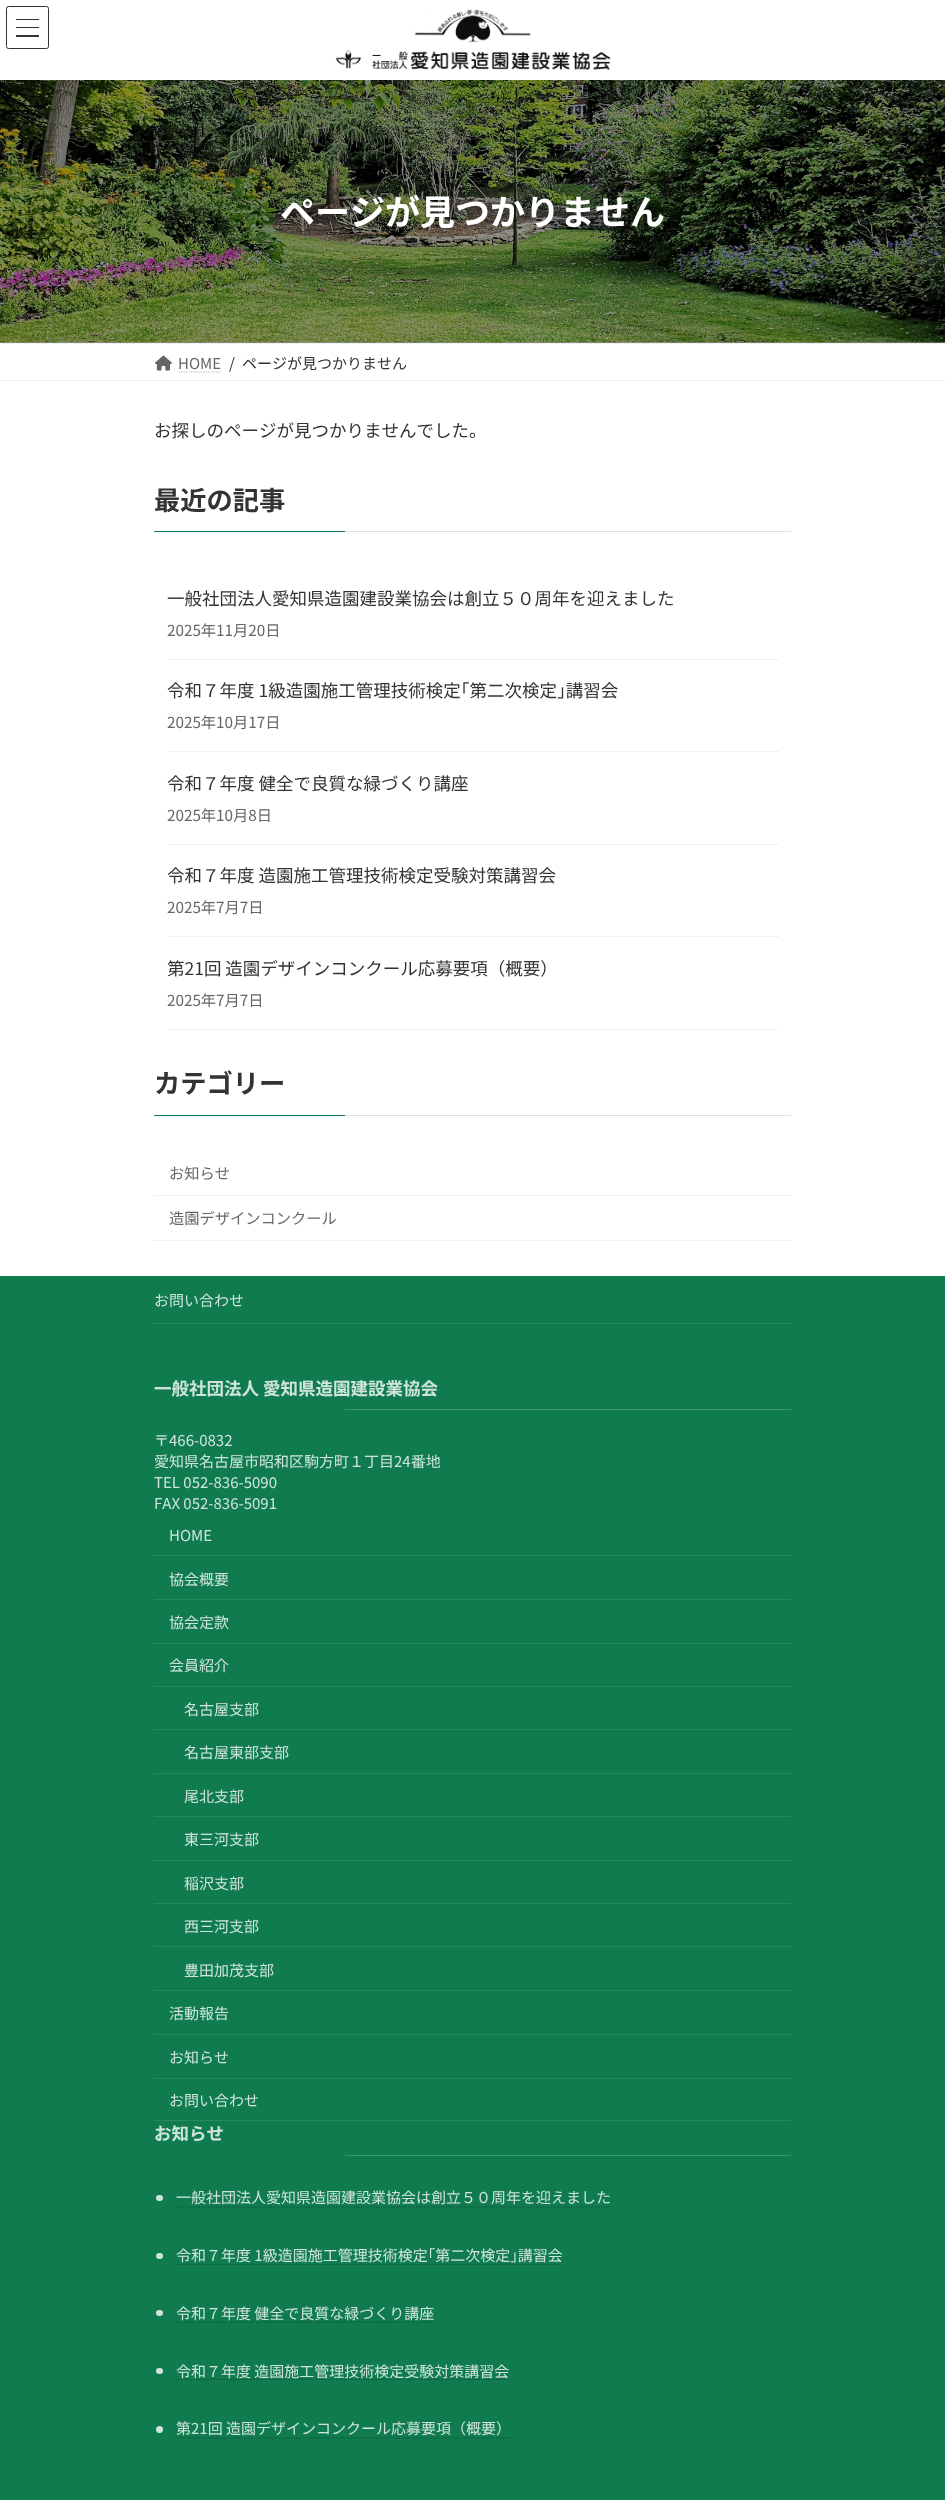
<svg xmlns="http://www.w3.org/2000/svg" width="945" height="2500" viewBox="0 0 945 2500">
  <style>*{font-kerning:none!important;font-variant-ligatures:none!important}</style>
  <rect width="100%" height="100%" fill="#ffffff"/>
  <rect x="0" y="342" width="945" height="1" fill="#999999"/>
  <rect x="16" y="19" width="23" height="1" fill="#333333"/>
  <rect x="16" y="27" width="23" height="1" fill="#333333"/>
  <rect x="16" y="35" width="23" height="2" fill="#333333"/>
  <rect x="6.5" y="6.5" width="42" height="42" rx="2" fill="none" stroke="#333333"/>
  <image x="335" y="9" width="276" height="62" href="img1.png"/>
  <image x="0" y="80" width="945" height="263" href="img2.png"/>
  <text x="280" y="225" font-family="Noto Sans JP" font-size="35" font-weight="bold" fill="#ffffff">ページが見つかりません</text>
  <rect x="0" y="343" width="945" height="1" fill="#f0f0f0"/>
  <rect x="0" y="380" width="945" height="1" fill="#f0f0f0"/>
  <image x="155" y="355" width="17" height="16" href="img3.png"/>
  <text x="178" y="369" font-family="Noto Sans JP" font-size="15" fill="#666666">HOME</text>
  <path d="M178.5 372H221.5" fill="none" stroke="#b3b3b3" stroke-width="1.2" stroke-dasharray="1.25 1.25"/>
  <text x="229" y="369" font-family="Noto Sans JP" font-size="15" fill="#333333">/</text>
  <text x="242" y="369" font-family="Noto Sans JP" font-size="15" fill="#333333">ページが見つかりません</text>
  <text x="154" y="437" font-family="Noto Sans JP" font-size="17.5" fill="#333333">お探しのページが見つかりませんでした。</text>
  <rect x="345" y="531" width="446" height="1" fill="#e0e0e0"/>
  <text x="154" y="510" font-family="Noto Sans JP" font-size="26.25" font-weight="bold" fill="#333333">最近の記事</text>
  <rect x="154" y="531" width="191" height="1" fill="#107b4e"/>
  <rect x="168" y="659" width="611" height="1" fill="#f0f0f0"/>
  <text x="167" y="605" font-family="Noto Sans JP" font-size="17.5" fill="#333333">一般社団法人愛知県造園建設業協会は創立５０周年を迎えました</text>
  <text x="167" y="636" font-family="Noto Sans JP" font-size="15.25" fill="#666666">2025年11月20日</text>
  <rect x="168" y="751" width="611" height="1" fill="#f0f0f0"/>
  <text x="167" y="697" font-family="Noto Sans JP" font-size="17.5" fill="#333333">令和７年度 1級造園施工管理技術検定｢第二次検定｣講習会</text>
  <text x="167" y="728" font-family="Noto Sans JP" font-size="15.25" fill="#666666">2025年10月17日</text>
  <rect x="168" y="844" width="611" height="1" fill="#f0f0f0"/>
  <text x="167" y="790" font-family="Noto Sans JP" font-size="17.5" fill="#333333">令和７年度 健全で良質な緑づくり講座</text>
  <text x="167" y="821" font-family="Noto Sans JP" font-size="15.25" fill="#666666">2025年10月8日</text>
  <rect x="168" y="936" width="611" height="1" fill="#f0f0f0"/>
  <text x="167" y="882" font-family="Noto Sans JP" font-size="17.5" fill="#333333">令和７年度 造園施工管理技術検定受験対策講習会</text>
  <text x="167" y="913" font-family="Noto Sans JP" font-size="15.25" fill="#666666">2025年7月7日</text>
  <rect x="168" y="1029" width="611" height="1" fill="#f0f0f0"/>
  <text x="167" y="975" font-family="Noto Sans JP" font-size="17.5" fill="#333333">第21回 造園デザインコンクール応募要項（概要）</text>
  <text x="167" y="1006" font-family="Noto Sans JP" font-size="15.25" fill="#666666">2025年7月7日</text>
  <rect x="345" y="1115" width="446" height="1" fill="#e0e0e0"/>
  <text x="154" y="1093" font-family="Noto Sans JP" font-size="26.25" font-weight="bold" fill="#333333">カテゴリー</text>
  <rect x="154" y="1115" width="191" height="1" fill="#107b4e"/>
  <rect x="154" y="1195" width="637" height="1" fill="#f0f0f0"/>
  <text x="169" y="1179" font-family="Noto Sans JP" font-size="15.25" fill="#666666">お知らせ</text>
  <rect x="154" y="1240" width="637" height="1" fill="#f0f0f0"/>
  <text x="169" y="1224" font-family="Noto Sans JP" font-size="15.25" fill="#666666">造園デザインコンクール</text>
  <rect x="0" y="1276" width="945" height="1224" fill="#107b4e"/>
  <rect x="154" y="1323" width="637" height="1" fill="#288860"/>
  <text x="154" y="1306" font-family="Noto Sans JP" font-size="15" fill="#cfe5dc">お問い合わせ</text>
  <rect x="345" y="1409" width="446" height="1" fill="#409571"/>
  <text x="154" y="1395" font-family="Noto Sans JP" font-size="17.5" font-weight="bold" fill="#cfe5dc">一般社団法人 愛知県造園建設業協会</text>
  <text x="154" y="1446" font-family="Noto Sans JP" font-size="15" fill="#cfe5dc">〒466-0832</text>
  <text x="154" y="1467" font-family="Noto Sans JP" font-size="15" fill="#cfe5dc">愛知県名古屋市昭和区駒方町１丁目24番地</text>
  <text x="154" y="1488" font-family="Noto Sans JP" font-size="15" fill="#cfe5dc">TEL 052-836-5090</text>
  <text x="154" y="1509" font-family="Noto Sans JP" font-size="15" fill="#cfe5dc">FAX 052-836-5091</text>
  <rect x="154" y="1555" width="637" height="1" fill="#288860"/>
  <text x="169" y="1541" font-family="Noto Sans JP" font-size="15" fill="#cfe5dc">HOME</text>
  <rect x="154" y="1599" width="637" height="1" fill="#288860"/>
  <text x="169" y="1585" font-family="Noto Sans JP" font-size="15" fill="#cfe5dc">協会概要</text>
  <rect x="154" y="1643" width="637" height="1" fill="#288860"/>
  <text x="169" y="1628" font-family="Noto Sans JP" font-size="15" fill="#cfe5dc">協会定款</text>
  <rect x="154" y="1686" width="637" height="1" fill="#288860"/>
  <text x="169" y="1671" font-family="Noto Sans JP" font-size="15" fill="#cfe5dc">会員紹介</text>
  <rect x="154" y="1729" width="637" height="1" fill="#288860"/>
  <text x="184" y="1715" font-family="Noto Sans JP" font-size="15" fill="#cfe5dc">名古屋支部</text>
  <rect x="154" y="1773" width="637" height="1" fill="#288860"/>
  <text x="184" y="1758" font-family="Noto Sans JP" font-size="15" fill="#cfe5dc">名古屋東部支部</text>
  <rect x="154" y="1816" width="637" height="1" fill="#288860"/>
  <text x="184" y="1802" font-family="Noto Sans JP" font-size="15" fill="#cfe5dc">尾北支部</text>
  <rect x="154" y="1860" width="637" height="1" fill="#288860"/>
  <text x="184" y="1845" font-family="Noto Sans JP" font-size="15" fill="#cfe5dc">東三河支部</text>
  <rect x="154" y="1903" width="637" height="1" fill="#288860"/>
  <text x="184" y="1889" font-family="Noto Sans JP" font-size="15" fill="#cfe5dc">稲沢支部</text>
  <rect x="154" y="1946" width="637" height="1" fill="#288860"/>
  <text x="184" y="1932" font-family="Noto Sans JP" font-size="15" fill="#cfe5dc">西三河支部</text>
  <rect x="154" y="1990" width="637" height="1" fill="#288860"/>
  <text x="184" y="1976" font-family="Noto Sans JP" font-size="15" fill="#cfe5dc">豊田加茂支部</text>
  <rect x="154" y="2034" width="637" height="1" fill="#288860"/>
  <text x="169" y="2019" font-family="Noto Sans JP" font-size="15" fill="#cfe5dc">活動報告</text>
  <rect x="154" y="2078" width="637" height="1" fill="#288860"/>
  <text x="169" y="2063" font-family="Noto Sans JP" font-size="15" fill="#cfe5dc">お知らせ</text>
  <rect x="154" y="2120" width="637" height="1" fill="#288860"/>
  <text x="169" y="2106" font-family="Noto Sans JP" font-size="15" fill="#cfe5dc">お問い合わせ</text>
  <rect x="345" y="2155" width="446" height="1" fill="#409571"/>
  <text x="154" y="2140" font-family="Noto Sans JP" font-size="17.5" font-weight="bold" fill="#cfe5dc">お知らせ</text>
  <rect x="156" y="2195" width="7" height="6" rx="3" fill="#cfe5dc"/>
  <text x="176" y="2203" font-family="Noto Sans JP" font-size="15" fill="#cfe5dc">一般社団法人愛知県造園建設業協会は創立５０周年を迎えました</text>
  <path d="M176 2207H611.5" fill="none" stroke="#0b5637" stroke-width="1.2" stroke-dasharray="1.25 1.25"/>
  <rect x="156" y="2253" width="7" height="6" rx="3" fill="#cfe5dc"/>
  <text x="176" y="2261" font-family="Noto Sans JP" font-size="15" fill="#cfe5dc">令和７年度 1級造園施工管理技術検定｢第二次検定｣講習会</text>
  <path d="M176 2264.5H563" fill="none" stroke="#0b5637" stroke-width="1.2" stroke-dasharray="1.25 1.25"/>
  <rect x="156" y="2310" width="7" height="6" rx="3" fill="#cfe5dc"/>
  <text x="176" y="2319" font-family="Noto Sans JP" font-size="15" fill="#cfe5dc">令和７年度 健全で良質な緑づくり講座</text>
  <path d="M176 2322H434.5" fill="none" stroke="#0b5637" stroke-width="1.2" stroke-dasharray="1.25 1.25"/>
  <rect x="156" y="2368" width="7" height="6" rx="3" fill="#cfe5dc"/>
  <path d="M176 2379.5H509.5" fill="none" stroke="#0b5637" stroke-width="1.2" stroke-dasharray="1.25 1.25"/>
  <text x="176" y="2377" font-family="Noto Sans JP" font-size="15" fill="#cfe5dc">令和７年度 造園施工管理技術検定受験対策講習会</text>
  <circle cx="159.5" cy="2429.5" r="3.5" fill="#cfe5dc"/>
  <text x="176" y="2434" font-family="Noto Sans JP" font-size="15" fill="#cfe5dc">第21回 造園デザインコンクール応募要項（概要）</text>
  <path d="M176 2438H511.5" fill="none" stroke="#0b5637" stroke-width="1.2" stroke-dasharray="1.25 1.25"/>
</svg>
